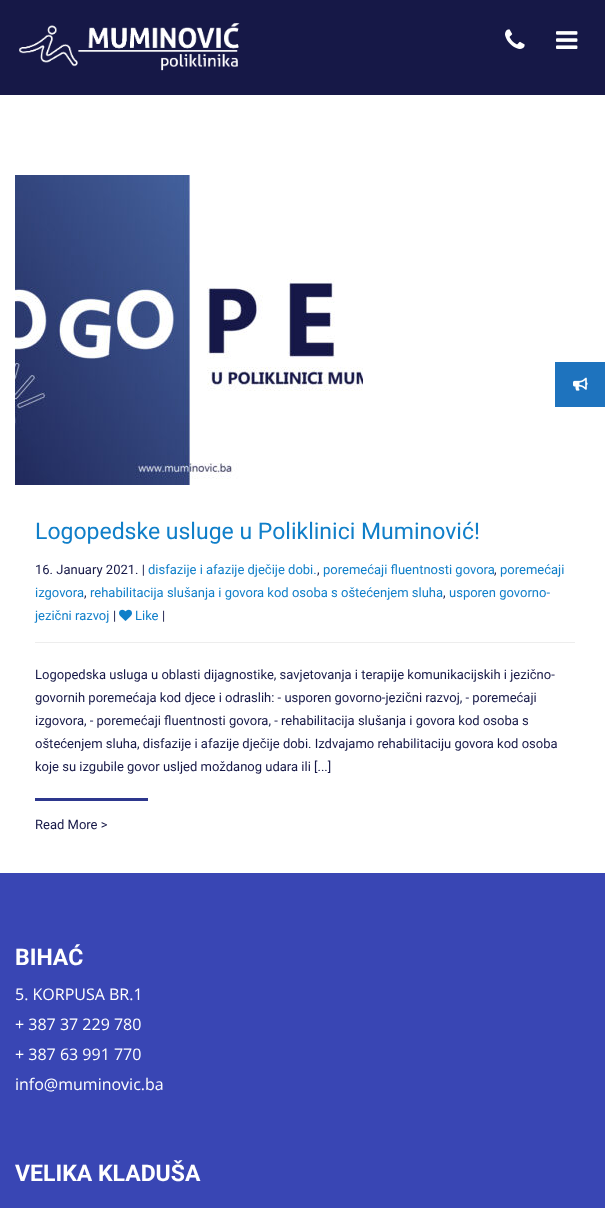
<svg xmlns="http://www.w3.org/2000/svg" width="605" height="1208" viewBox="0 0 605 1208">
  <rect width="100%" height="100%" fill="#ffffff"/>
  <rect x="555" y="362" width="50" height="45" fill="#1e73be"/>
  <image x="573" y="377" width="15" height="14" href="img1.png"/>
  <rect x="0" y="0" width="605" height="95" fill="#161847"/>
  <image x="19" y="23" width="221" height="48" href="img2.png"/>
  <image x="505" y="29" width="20" height="20" href="img3.png"/>
  <image x="556" y="31" width="22" height="18" href="img4.png"/>
  <image x="15" y="175" width="348" height="310" href="img5.png"/>
  <text x="35" y="539" font-family="Roboto" font-size="23" fill="#107fc9">Logopedske usluge u Poliklinici Muminović!</text>
  <rect x="35" y="642" width="540" height="1" fill="#ededed"/>
  <text x="35" y="574" font-family="Roboto" font-size="13" fill="#161847">16. January 2021. |</text>
  <text x="148" y="574" font-family="Roboto" font-size="13" fill="#107fc9">disfazije i afazije dječije dobi.</text>
  <text x="317" y="574" font-family="Roboto" font-size="13" fill="#161847">,</text>
  <text x="323" y="574" font-family="Roboto" font-size="13" fill="#107fc9">poremećaji fluentnosti govora</text>
  <text x="494" y="574" font-family="Roboto" font-size="13" fill="#161847">,</text>
  <text x="500" y="574" font-family="Roboto" font-size="13" fill="#107fc9">poremećaji</text>
  <text x="35" y="597" font-family="Roboto" font-size="13" fill="#107fc9">izgovora</text>
  <text x="84" y="597" font-family="Roboto" font-size="13" fill="#161847">,</text>
  <text x="90" y="597" font-family="Roboto" font-size="13" fill="#107fc9">rehabilitacija slušanja i govora kod osoba s oštećenjem sluha</text>
  <text x="443" y="597" font-family="Roboto" font-size="13" fill="#161847">,</text>
  <text x="449" y="597" font-family="Roboto" font-size="13" fill="#107fc9">usporen govorno-</text>
  <text x="35" y="620" font-family="Roboto" font-size="13" fill="#107fc9">jezični razvoj</text>
  <text x="113" y="620" font-family="Roboto" font-size="13" fill="#161847">|</text>
  <image x="119" y="609" width="13" height="12" href="img6.png"/>
  <text x="135" y="620" font-family="Roboto" font-size="13" fill="#107fc9">Like</text>
  <text x="162" y="620" font-family="Roboto" font-size="13" fill="#161847">|</text>
  <text x="35" y="679" font-family="Roboto" font-size="13" fill="#161847">Logopedska usluga u oblasti dijagnostike, savjetovanja i terapije komunikacijskih i jezično-</text>
  <text x="35" y="702" font-family="Roboto" font-size="13" fill="#161847">govornih poremećaja kod djece i odraslih: - usporen govorno-jezični razvoj, - poremećaji</text>
  <text x="35" y="725" font-family="Roboto" font-size="13" fill="#161847">izgovora, - poremećaji fluentnosti govora, - rehabilitacija slušanja i govora kod osoba s</text>
  <text x="35" y="748" font-family="Roboto" font-size="13" fill="#161847">oštećenjem sluha, disfazije i afazije dječije dobi. Izdvajamo rehabilitaciju govora kod osoba</text>
  <text x="35" y="771" font-family="Roboto" font-size="13" fill="#161847">koje su izgubile govor usljed moždanog udara ili [...]</text>
  <rect x="35" y="798" width="113" height="3" fill="#2d378d"/>
  <text x="35" y="829" font-family="Roboto" font-size="13" fill="#161847">Read More &gt;</text>
  <rect x="0" y="873" width="605" height="335" fill="#3946b4"/>
  <text x="15" y="965" font-family="Roboto" font-size="23" font-weight="bold" fill="#ffffff">BIHAĆ</text>
  <text x="15" y="1000" font-family="Open Sans" font-size="16" fill="#ffffff">5. KORPUSA BR.1</text>
  <text x="15" y="1030" font-family="Open Sans" font-size="16" fill="#ffffff">+ 387 37 229 780</text>
  <text x="15" y="1060" font-family="Open Sans" font-size="16" fill="#ffffff">+ 387 63 991 770</text>
  <text x="15" y="1090" font-family="Open Sans" font-size="16" fill="#ffffff">info@muminovic.ba</text>
  <text x="15" y="1181" font-family="Roboto" font-size="23" font-weight="bold" fill="#ffffff">VELIKA KLADUŠA</text>
</svg>
